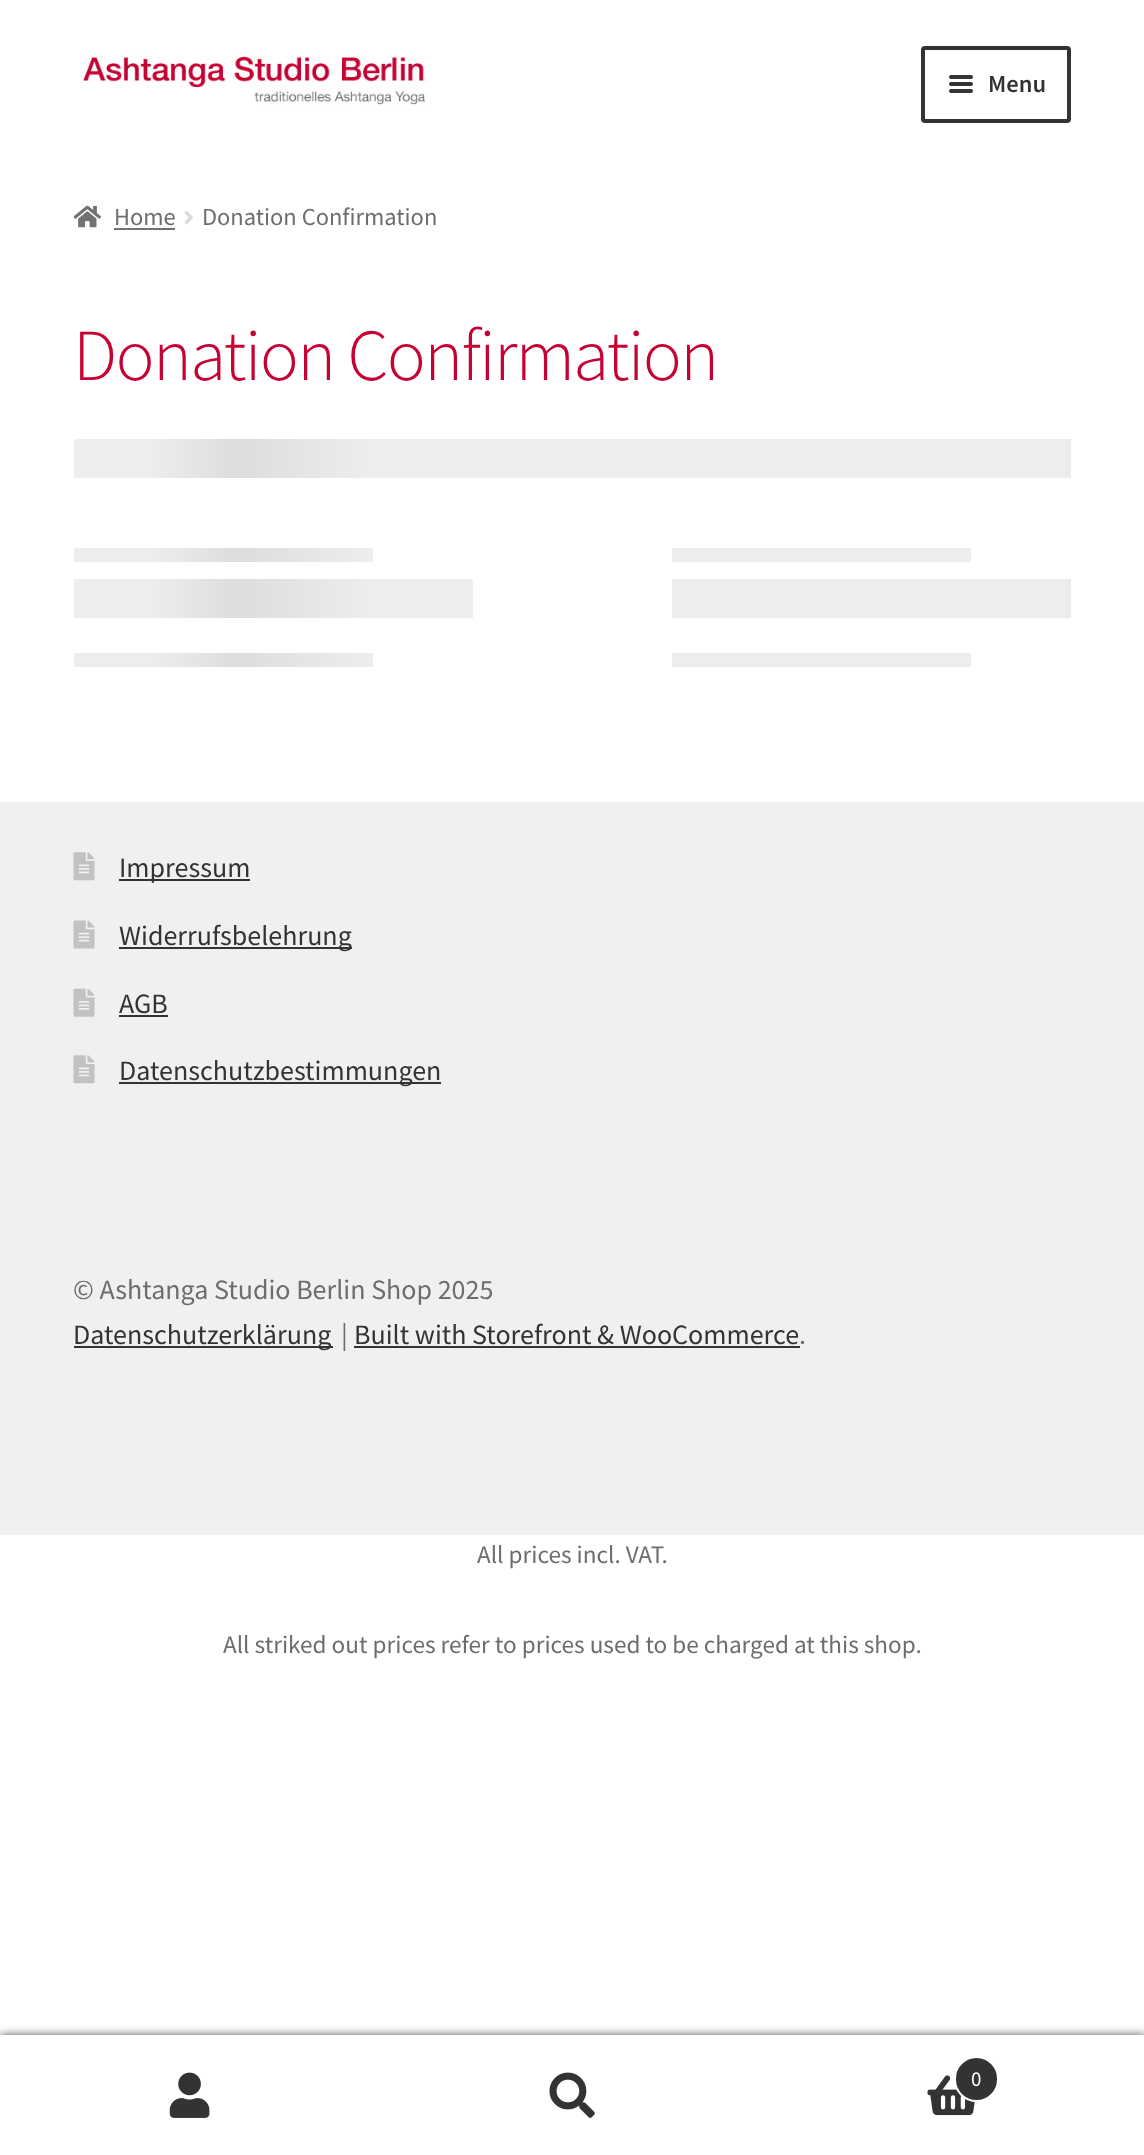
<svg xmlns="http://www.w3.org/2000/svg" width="1144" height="2155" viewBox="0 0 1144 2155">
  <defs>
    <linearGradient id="g1" gradientUnits="userSpaceOnUse" x1="74" y1="562" x2="984" y2="562"><stop offset="0.08" stop-color="#eeeeee"/><stop offset="0.18" stop-color="#dddddd"/><stop offset="0.33" stop-color="#eeeeee"/></linearGradient>
    <linearGradient id="g2" gradientUnits="userSpaceOnUse" x1="984" y1="562" x2="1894" y2="562"><stop offset="0.08" stop-color="#eeeeee"/><stop offset="0.18" stop-color="#dddddd"/><stop offset="0.33" stop-color="#eeeeee"/></linearGradient>
    <filter id="blur1" x="-50%" y="-200%" width="200%" height="500%"><feGaussianBlur stdDeviation="5"/></filter>
  </defs>
  <rect width="100%" height="100%" fill="#ffffff"/>
  <image x="80" y="55" width="348" height="50" href="img1.png"/>
  <rect x="923" y="48" width="146" height="73" rx="2" fill="none" stroke="#333333" stroke-width="4"/>
  <rect x="949" y="75" width="24" height="4" rx="2" fill="#333333"/>
  <rect x="949" y="82" width="24" height="4" rx="2" fill="#333333"/>
  <text x="988" y="92" font-family="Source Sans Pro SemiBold" font-size="24.5" font-weight="600" fill="#333333">Menu</text>
  <rect x="949" y="89" width="24" height="4" rx="2" fill="#333333"/>
  <image x="73" y="205" width="28" height="23" href="img2.png"/>
  <text x="114" y="225" font-family="Source Sans Pro" font-size="24.5" fill="#6d6d6d">Home</text>
  <rect x="114" y="228" width="61" height="2" fill="#727272"/>
  <image x="184" y="210" width="10" height="15" href="img3.png"/>
  <text x="202" y="225" font-family="Source Sans Pro" font-size="24.5" fill="#6d6d6d">Donation Confirmation</text>
  <text x="73" y="380" font-family="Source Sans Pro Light" font-size="73.25" font-weight="300" letter-spacing="-1.75" fill="#c50233">Donation Confirmation</text>
  <rect x="74" y="439" width="910" height="228" fill="url(#g1)"/>
  <rect x="984" y="439" width="87" height="179" fill="url(#g2)"/>
  <rect x="74" y="478" width="997" height="70" fill="#ffffff"/>
  <rect x="373" y="548" width="299" height="14" fill="#ffffff"/>
  <rect x="971" y="548" width="100" height="14" fill="#ffffff"/>
  <rect x="74" y="562" width="997" height="17" fill="#ffffff"/>
  <rect x="473" y="579" width="199" height="39" fill="#ffffff"/>
  <rect x="74" y="618" width="910" height="35" fill="#ffffff"/>
  <rect x="373" y="653" width="299" height="14" fill="#ffffff"/>
  <rect x="971" y="653" width="13" height="14" fill="#ffffff"/>
  <rect x="0" y="802" width="1144" height="733" fill="#f0f0f0"/>
  <image x="73" y="852" width="22" height="29" href="img4.png"/>
  <rect x="119" y="879" width="131" height="2" fill="#333333"/>
  <text x="119" y="877" font-family="Source Sans Pro" font-size="28" fill="#333333">Impressum</text>
  <image x="73" y="920" width="22" height="29" href="img5.png"/>
  <rect x="119" y="947" width="233" height="2" fill="#333333"/>
  <text x="119" y="945" font-family="Source Sans Pro" font-size="28" fill="#333333">Widerrufsbelehrung</text>
  <image x="73" y="988" width="22" height="29" href="img6.png"/>
  <text x="119" y="1013" font-family="Source Sans Pro" font-size="28" fill="#333333">AGB</text>
  <rect x="119" y="1015" width="49" height="2" fill="#333333"/>
  <image x="73" y="1055" width="22" height="29" href="img4.png"/>
  <rect x="119" y="1082" width="322" height="2" fill="#333333"/>
  <text x="119" y="1080" font-family="Source Sans Pro" font-size="28" fill="#333333">Datenschutzbestimmungen</text>
  <text x="73" y="1299" font-family="Source Sans Pro" font-size="28" fill="#6d6d6d">© Ashtanga Studio Berlin Shop 2025</text>
  <rect x="74" y="1346" width="259" height="2" fill="#333333"/>
  <text x="73" y="1344" font-family="Source Sans Pro" font-size="28" fill="#333333">Datenschutzerklärung</text>
  <text x="341" y="1344" font-family="Source Sans Pro" font-size="28" fill="#6d6d6d">|</text>
  <text x="354" y="1344" font-family="Source Sans Pro" font-size="28" fill="#333333">Built with Storefront &amp; WooCommerce</text>
  <rect x="354" y="1346" width="446" height="2" fill="#333333"/>
  <text x="799" y="1344" font-family="Source Sans Pro" font-size="28" fill="#6d6d6d">.</text>
  <rect x="0" y="2035" width="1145" height="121" fill="#000000" fill-opacity="0.7" filter="url(#blur1)"/>
  <rect x="0" y="2035" width="1144" height="2" fill="#ffffff"/>
  <rect x="0" y="2037" width="1144" height="118" fill="#ffffff"/>
  <image x="169" y="2072" width="41" height="46" href="img7.png"/>
  <image x="549" y="2072" width="46" height="46" href="img8.png"/>
  <image x="927" y="2075" width="48" height="41" href="img9.png"/>
  <rect x="955" y="2057" width="43" height="44" rx="21.5" fill="#333333" stroke="#ffffff" stroke-width="2"/>
  <text x="971" y="2086" font-family="Source Sans Pro" font-size="21" fill="#ffffff">0</text>
  <text x="477" y="1563" font-family="Source Sans Pro" font-size="25.2" fill="#6d6d6d">All prices incl. VAT.</text>
  <text x="223" y="1653" font-family="Source Sans Pro" font-size="25.2" fill="#6d6d6d">All striked out prices refer to prices used to be charged at this shop.</text>
</svg>
